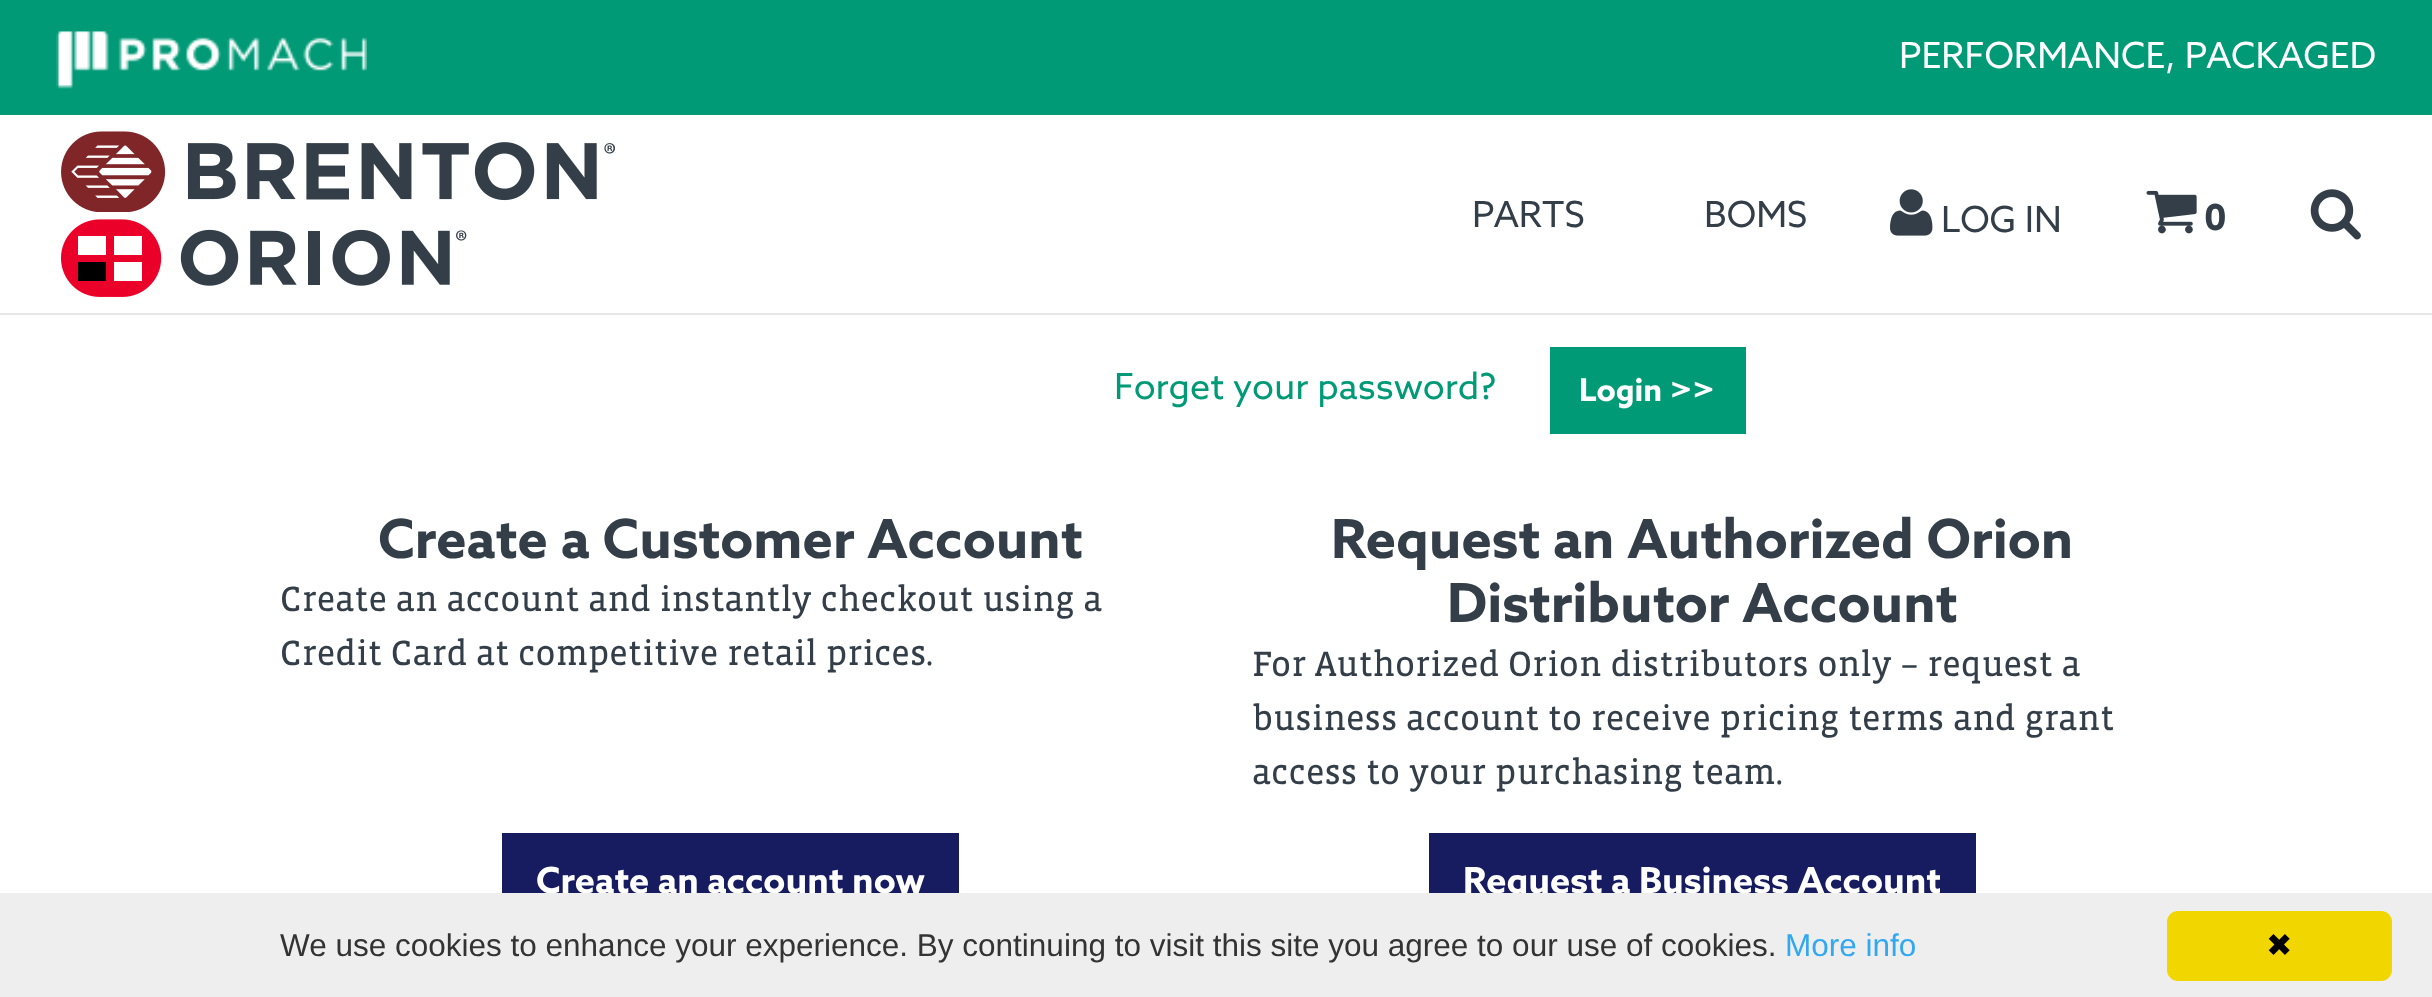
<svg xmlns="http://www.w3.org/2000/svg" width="2432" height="997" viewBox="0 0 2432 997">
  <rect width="100%" height="100%" fill="#ffffff"/>
  <rect x="0" y="0" width="2432" height="115" fill="#009a76"/>
  <image x="56" y="31" width="311" height="58" href="img1.png"/>
  <text x="1899" y="68" font-family="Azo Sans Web" font-size="36" fill="#ffffff">PERFORMANCE, PACKAGED</text>
  <rect x="0" y="313" width="2432" height="2" fill="#e7e6e4"/>
  <image x="61" y="131" width="554" height="81" href="img2.png"/>
  <image x="61" y="219" width="406" height="78" href="img3.png"/>
  <text x="1472" y="227" font-family="Azo Sans Web" font-size="36" fill="#333e48">PARTS</text>
  <text x="1704" y="227" font-family="Azo Sans Web" font-size="36" fill="#333e48">BOMS</text>
  <image x="1890" y="189" width="43" height="47" href="img4.png"/>
  <text x="1941" y="232" font-family="Azo Sans Web" font-size="36" fill="#333e48">LOG IN</text>
  <image x="2146" y="190" width="51" height="44" href="img5.png"/>
  <text x="2204" y="230" font-family="Azo Sans Web" font-size="36" font-weight="bold" fill="#333e48">0</text>
  <image x="2310" y="189" width="51" height="51" href="img6.png"/>
  <text x="1114" y="399" font-family="Azo Sans Web" font-size="36" fill="#009a76">Forget your password?</text>
  <rect x="1550" y="347" width="196" height="87" fill="#009a76"/>
  <text x="1579" y="401" font-family="Azo Sans Web" font-size="31.5" font-weight="bold" fill="#ffffff">Login &gt;&gt;</text>
  <text x="378" y="558" font-family="Azo Sans Web" font-size="54" font-weight="bold" fill="#333e48">Create a Customer Account</text>
  <text x="280" y="611" font-family="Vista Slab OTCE" font-size="36" fill="#333e48">Create an account and instantly checkout using a</text>
  <text x="280" y="665" font-family="Vista Slab OTCE" font-size="36" fill="#333e48">Credit Card at competitive retail prices.</text>
  <rect x="502" y="833" width="457" height="60" fill="#171b60"/>
  <text x="536" y="893" font-family="Azo Sans Web" font-size="36" font-weight="bold" fill="#ffffff">Create an account now</text>
  <text x="1331" y="558" font-family="Azo Sans Web" font-size="54" font-weight="bold" fill="#333e48">Request an Authorized Orion</text>
  <text x="1447" y="622" font-family="Azo Sans Web" font-size="54" font-weight="bold" fill="#333e48">Distributor Account</text>
  <text x="1252" y="676" font-family="Vista Slab OTCE" font-size="36" fill="#333e48">For Authorized Orion distributors only – request a</text>
  <text x="1252" y="730" font-family="Vista Slab OTCE" font-size="36" fill="#333e48">business account to receive pricing terms and grant</text>
  <text x="1252" y="784" font-family="Vista Slab OTCE" font-size="36" fill="#333e48">access to your purchasing team.</text>
  <rect x="1429" y="833" width="547" height="60" fill="#171b60"/>
  <text x="1463" y="893" font-family="Azo Sans Web" font-size="36" font-weight="bold" fill="#ffffff">Request a Business Account</text>
  <rect x="0" y="893" width="2432" height="104" fill="#eeeeee"/>
  <text x="280" y="956" font-family="Liberation Sans" font-size="31.5" fill="#333333">We use cookies to enhance your experience. By continuing to visit this site you agree to our use of cookies.</text>
  <text x="1785" y="956" font-family="Liberation Sans" font-size="31.5" fill="#31a8f0">More info</text>
  <rect x="2167" y="911" width="225" height="70" rx="11" fill="#f1d600"/>
  <text x="2266" y="956" font-family="DejaVu Sans" font-size="31.5" fill="#000000">✖</text>
</svg>
